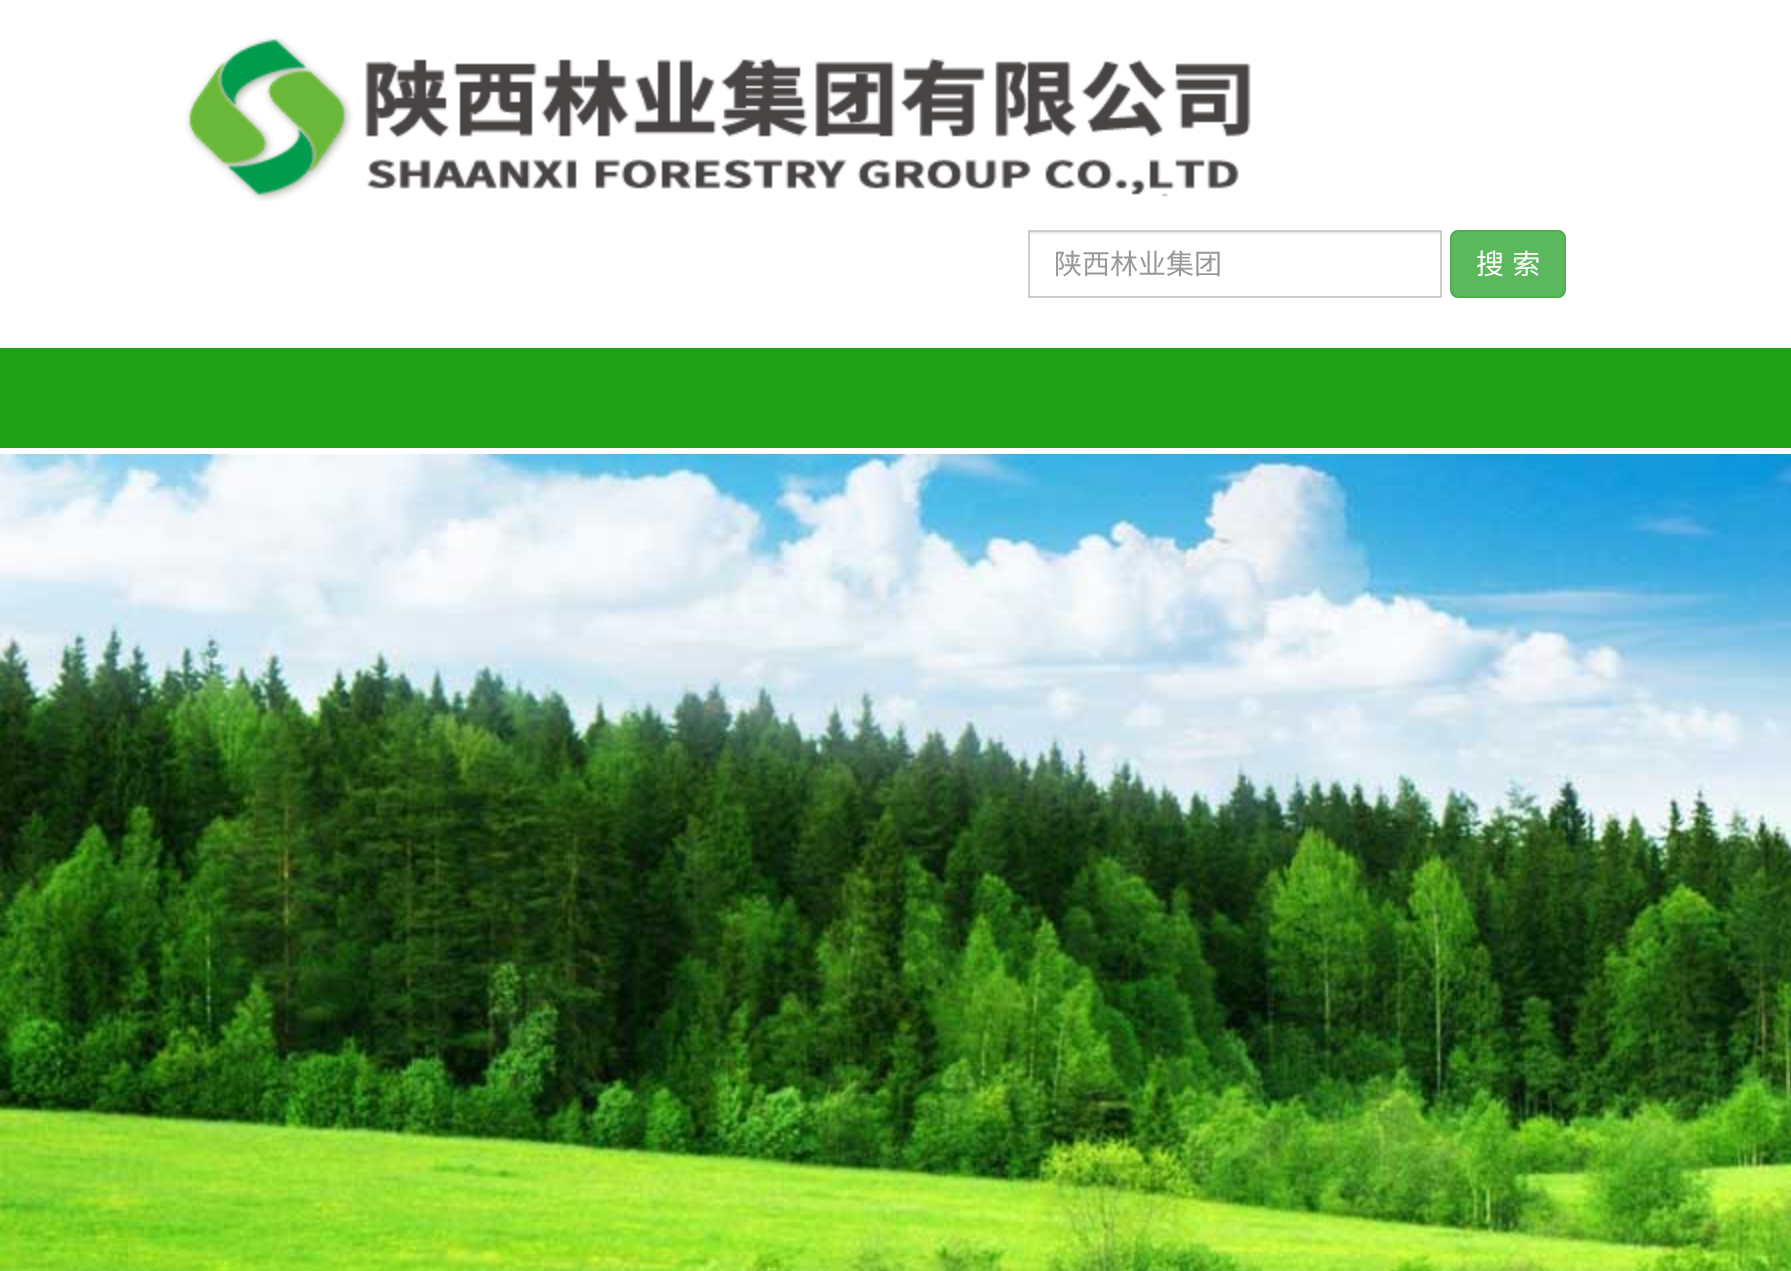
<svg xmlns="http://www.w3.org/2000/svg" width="1791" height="1271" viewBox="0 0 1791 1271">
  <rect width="100%" height="100%" fill="#ffffff"/>
  <image x="185" y="36" width="1066" height="166" href="img1.png"/>
  <rect x="1030" y="232" width="410" height="2" fill="#ececec"/>
  <rect x="1029" y="231" width="412" height="66" fill="none" stroke="#cccccc" stroke-width="2"/>
  <text x="1054" y="274" font-family="Noto Sans CJK SC" font-size="28" fill="#999999">陕西林业集团</text>
  <rect x="1451" y="231" width="114" height="66" rx="7" fill="#5cb85c" stroke="#4cae4c" stroke-width="2"/>
  <text x="1476" y="274" word-spacing="2" font-family="Noto Sans CJK SC" font-size="28" fill="#ffffff">搜 索</text>
  <rect x="0" y="348" width="1791" height="100" fill="#21a117"/>
  <image x="0" y="454" width="1791" height="817" href="img2.png"/>
</svg>
